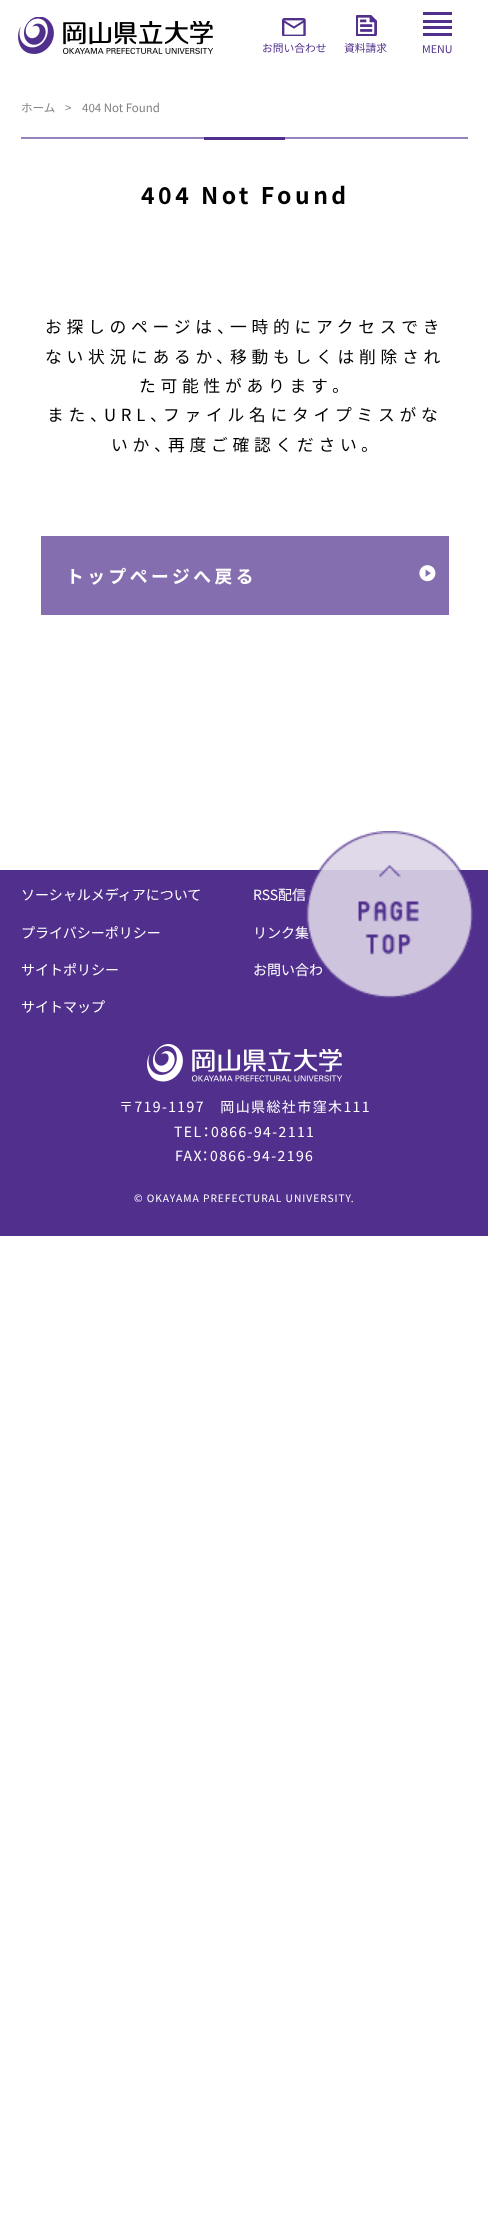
<svg xmlns="http://www.w3.org/2000/svg" width="488" height="2230" viewBox="0 0 488 2230">
  <rect width="100%" height="100%" fill="#ffffff"/>
  <image x="18" y="17" width="36" height="37" href="img1.png"/>
  <image x="63" y="21" width="150" height="33" href="img2.png"/>
  <image x="282" y="18" width="24" height="18" href="img3.png"/>
  <text x="262" y="52" font-family="Noto Sans JP" font-size="10.75" fill="#51308d">お問い合わせ</text>
  <image x="356" y="15" width="21" height="21" href="img4.png"/>
  <text x="344" y="52" font-family="Noto Sans JP" font-size="10.75" fill="#51308d">資料請求</text>
  <rect x="423" y="12" width="29" height="3" fill="#51308d"/>
  <rect x="423" y="20" width="29" height="3" fill="#51308d"/>
  <rect x="423" y="26" width="29" height="3" fill="#51308d"/>
  <rect x="423" y="33" width="29" height="3" fill="#51308d"/>
  <text x="422" y="53" font-family="Noto Sans JP" font-size="10.75" fill="#51308d">MENU</text>
  <text x="21" y="112" font-family="Noto Sans JP" font-size="11.5" fill="#828282">ホーム</text>
  <text x="65" y="112" font-family="Noto Sans JP" font-size="11.5" fill="#828282">&gt;</text>
  <text x="82" y="112" font-family="Noto Sans JP" font-size="11.5" fill="#828282">404 Not Found</text>
  <rect x="21" y="137" width="447" height="2" fill="#9783bb"/>
  <rect x="204" y="137" width="81" height="3" fill="#51308d"/>
  <text x="141" y="204" font-family="Noto Sans JP" font-size="23" font-weight="bold" letter-spacing="3.5" fill="#000000">404 Not Found</text>
  <text x="45" y="333" font-family="Noto Sans JP" font-size="16.75" letter-spacing="4.75" fill="#000000">お探しのページは</text>
  <text x="217" y="333" font-family="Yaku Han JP" font-size="16.75" letter-spacing="4.75" fill="#000000">、</text>
  <text x="230" y="333" font-family="Noto Sans JP" font-size="16.75" letter-spacing="4.75" fill="#000000">一時的にアクセスでき</text>
  <text x="45" y="363" font-family="Noto Sans JP" font-size="16.75" letter-spacing="4.75" fill="#000000">ない状況にあるか</text>
  <text x="216" y="363" font-family="Yaku Han JP" font-size="16.75" letter-spacing="4.75" fill="#000000">、</text>
  <text x="230" y="363" font-family="Noto Sans JP" font-size="16.75" letter-spacing="4.75" fill="#000000">移動もしくは削除され</text>
  <text x="139" y="392" font-family="Noto Sans JP" font-size="16.75" letter-spacing="4.75" fill="#000000">た可能性があります</text>
  <text x="332" y="392" font-family="Yaku Han JP" font-size="16.75" letter-spacing="4.75" fill="#000000">。</text>
  <text x="47" y="421" font-family="Noto Sans JP" font-size="16.75" letter-spacing="4.75" fill="#000000">また</text>
  <text x="90" y="421" font-family="Yaku Han JP" font-size="16.75" letter-spacing="4.75" fill="#000000">、</text>
  <text x="104" y="421" font-family="Noto Sans JP" font-size="16.75" letter-spacing="4.75" fill="#000000">URL</text>
  <text x="150" y="421" font-family="Yaku Han JP" font-size="16.75" letter-spacing="4.75" fill="#000000">、</text>
  <text x="163" y="421" font-family="Noto Sans JP" font-size="16.75" letter-spacing="4.75" fill="#000000">ファイル名にタイプミスがな</text>
  <text x="111" y="451" font-family="Noto Sans JP" font-size="16.75" letter-spacing="4.75" fill="#000000">いか</text>
  <text x="154" y="451" font-family="Yaku Han JP" font-size="16.75" letter-spacing="4.75" fill="#000000">、</text>
  <text x="168" y="451" font-family="Noto Sans JP" font-size="16.75" letter-spacing="4.75" fill="#000000">再度ご確認ください</text>
  <text x="361" y="451" font-family="Yaku Han JP" font-size="16.75" letter-spacing="4.75" fill="#000000">。</text>
  <rect x="41" y="536" width="408" height="79" fill="#856eaf"/>
  <text x="66" y="583" font-family="Noto Sans JP" font-size="17.75" font-weight="bold" letter-spacing="3.5" fill="#ffffff">トップページへ戻る</text>
  <image x="419" y="565" width="17" height="17" href="img5.png"/>
  <rect x="0" y="870" width="488" height="366" fill="#51308d"/>
  <text x="21" y="900" font-family="Noto Sans JP" font-size="14" fill="#ffffff">ソーシャルメディアについて</text>
  <text x="253" y="900" font-family="Noto Sans JP" font-size="14" fill="#ffffff">RSS配信</text>
  <text x="21" y="938" font-family="Noto Sans JP" font-size="14" fill="#ffffff">プライバシーポリシー</text>
  <text x="253" y="938" font-family="Noto Sans JP" font-size="14" fill="#ffffff">リンク集</text>
  <text x="21" y="975" font-family="Noto Sans JP" font-size="14" fill="#ffffff">サイトポリシー</text>
  <text x="253" y="975" font-family="Noto Sans JP" font-size="14" fill="#ffffff">お問い合わ</text>
  <text x="21" y="1012" font-family="Noto Sans JP" font-size="14" fill="#ffffff">サイトマップ</text>
  <image x="306" y="831" width="167" height="167" href="img6.png"/>
  <image x="147" y="1044" width="36" height="38" href="img7.png"/>
  <image x="192" y="1049" width="150" height="33" href="img8.png"/>
  <text x="119" y="1112" font-family="Noto Sans JP" font-size="14" letter-spacing="1.4" fill="#ffffff">〒719-1197　岡山県総社市窪木111</text>
  <text x="174" y="1137" font-family="Noto Sans JP" font-size="14" letter-spacing="1.4" fill="#ffffff">TEL</text>
  <text x="203" y="1137" font-family="Yaku Han JP" font-size="14" letter-spacing="1.4" fill="#ffffff">：</text>
  <text x="211" y="1137" font-family="Noto Sans JP" font-size="14" letter-spacing="1.4" fill="#ffffff">0866-94-2111</text>
  <text x="175" y="1161" font-family="Noto Sans JP" font-size="14" letter-spacing="1.4" fill="#ffffff">FAX</text>
  <text x="202" y="1161" font-family="Yaku Han JP" font-size="14" letter-spacing="1.4" fill="#ffffff">：</text>
  <text x="210" y="1161" font-family="Noto Sans JP" font-size="14" letter-spacing="1.4" fill="#ffffff">0866-94-2196</text>
  <text x="134" y="1202" font-family="Noto Sans JP" font-size="10.2" letter-spacing="1" fill="#ffffff">© OKAYAMA PREFECTURAL UNIVERSITY.</text>
</svg>
